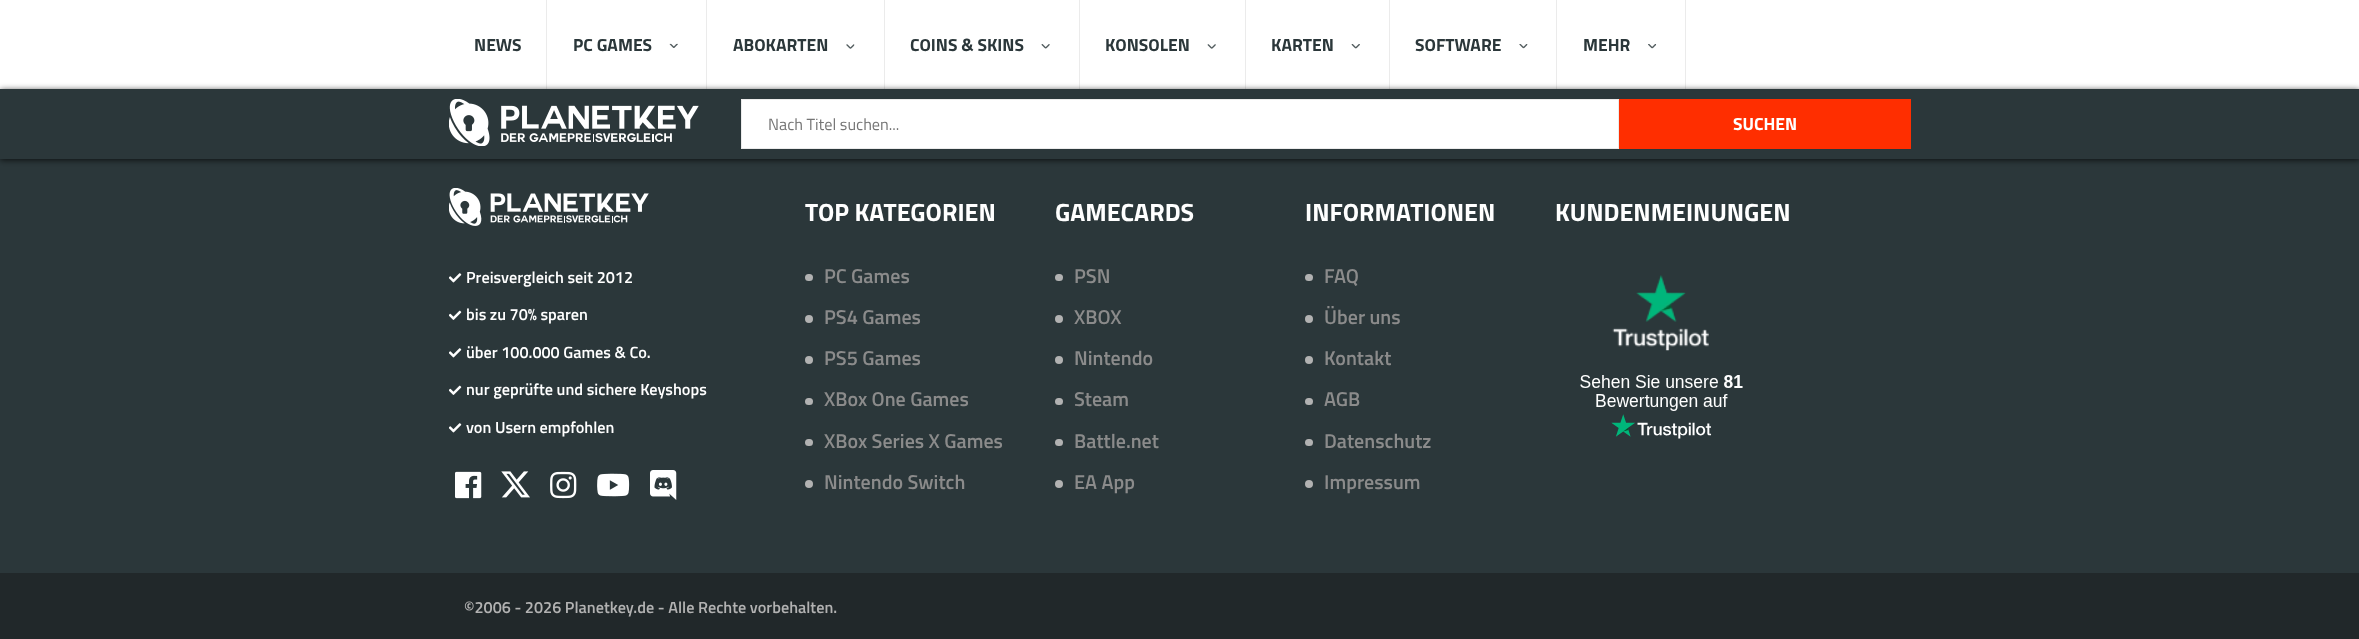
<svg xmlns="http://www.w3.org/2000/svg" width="2359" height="639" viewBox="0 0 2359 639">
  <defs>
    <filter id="blur1" x="-50%" y="-200%" width="200%" height="500%"><feGaussianBlur stdDeviation="3"/></filter>
  </defs>
  <rect width="100%" height="100%" fill="#2b373a"/>
  <rect x="0" y="0" width="2359" height="89" fill="#ffffff"/>
  <rect x="546" y="0" width="1" height="89" fill="#ebebeb"/>
  <text x="474" y="51" font-family="Titillium Web" font-size="17.5" font-weight="bold" fill="#2b373a">NEWS</text>
  <rect x="706" y="0" width="1" height="89" fill="#ebebeb"/>
  <text x="573" y="51" font-family="Titillium Web" font-size="17.5" font-weight="bold" fill="#2b373a">PC GAMES</text>
  <image x="669" y="43" width="9" height="5" href="img1.png"/>
  <rect x="884" y="0" width="1" height="89" fill="#ebebeb"/>
  <text x="733" y="51" font-family="Titillium Web" font-size="17.5" font-weight="bold" fill="#2b373a">ABOKARTEN</text>
  <image x="846" y="44" width="9" height="5" href="img2.png"/>
  <rect x="1079" y="0" width="1" height="89" fill="#ebebeb"/>
  <text x="910" y="51" font-family="Titillium Web" font-size="17.5" font-weight="bold" fill="#2b373a">COINS &amp; SKINS</text>
  <image x="1041" y="44" width="9" height="5" href="img3.png"/>
  <rect x="1245" y="0" width="1" height="89" fill="#ebebeb"/>
  <text x="1105" y="51" font-family="Titillium Web" font-size="17.5" font-weight="bold" fill="#2b373a">KONSOLEN</text>
  <image x="1207" y="44" width="9" height="5" href="img4.png"/>
  <rect x="1389" y="0" width="1" height="89" fill="#ebebeb"/>
  <text x="1271" y="51" font-family="Titillium Web" font-size="17.5" font-weight="bold" fill="#2b373a">KARTEN</text>
  <image x="1351" y="44" width="9" height="5" href="img5.png"/>
  <rect x="1556" y="0" width="1" height="89" fill="#ebebeb"/>
  <text x="1415" y="51" font-family="Titillium Web" font-size="17.5" font-weight="bold" fill="#2b373a">SOFTWARE</text>
  <image x="1519" y="44" width="9" height="5" href="img6.png"/>
  <rect x="1685" y="0" width="1" height="89" fill="#ebebeb"/>
  <text x="1583" y="51" font-family="Titillium Web" font-size="17.5" font-weight="bold" fill="#2b373a">MEHR</text>
  <image x="1648" y="44" width="9" height="5" href="img7.png"/>
  <rect x="0" y="90" width="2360" height="70" fill="#000000" fill-opacity="0.75" filter="url(#blur1)"/>
  <rect x="0" y="89" width="2359" height="70" fill="#2b373a"/>
  <image x="449" y="99" width="250" height="47" href="img8.png"/>
  <rect x="741.5" y="99.5" width="877" height="49" fill="#ffffff" stroke="#ebebeb"/>
  <text x="768" y="130" font-family="Titillium Web" font-size="16.25" fill="#757575">Nach Titel suchen...</text>
  <rect x="1619" y="99" width="292" height="50" fill="#ff2e00"/>
  <text x="1733" y="130" font-family="Titillium Web" font-size="17.5" font-weight="bold" fill="#ffffff">SUCHEN</text>
  <text x="805" y="221" font-family="Titillium Web" font-size="25" font-weight="bold" fill="#ffffff">TOP KATEGORIEN</text>
  <rect x="805" y="274" width="8" height="7" rx="3.5" fill="#b2b2b2"/>
  <text x="824" y="283" font-family="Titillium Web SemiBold" font-size="20" font-weight="600" fill="#8b8b8b">PC Games</text>
  <circle cx="809" cy="319" r="4" fill="#b2b2b2"/>
  <text x="824" y="324" font-family="Titillium Web SemiBold" font-size="20" font-weight="600" fill="#8b8b8b">PS4 Games</text>
  <circle cx="809" cy="360" r="4" fill="#b2b2b2"/>
  <text x="824" y="365" font-family="Titillium Web SemiBold" font-size="20" font-weight="600" fill="#8b8b8b">PS5 Games</text>
  <rect x="805" y="398" width="8" height="7" rx="3.5" fill="#b2b2b2"/>
  <text x="824" y="406" font-family="Titillium Web SemiBold" font-size="20" font-weight="600" fill="#8b8b8b">XBox One Games</text>
  <rect x="805" y="439" width="8" height="7" rx="3.5" fill="#b2b2b2"/>
  <text x="824" y="448" font-family="Titillium Web SemiBold" font-size="20" font-weight="600" fill="#8b8b8b">XBox Series X Games</text>
  <circle cx="809" cy="484" r="4" fill="#b2b2b2"/>
  <text x="824" y="489" font-family="Titillium Web SemiBold" font-size="20" font-weight="600" fill="#8b8b8b">Nintendo Switch</text>
  <text x="1055" y="221" font-family="Titillium Web" font-size="25" font-weight="bold" fill="#ffffff">GAMECARDS</text>
  <rect x="1055" y="274" width="8" height="7" rx="3.5" fill="#b2b2b2"/>
  <text x="1074" y="283" font-family="Titillium Web SemiBold" font-size="20" font-weight="600" fill="#8b8b8b">PSN</text>
  <circle cx="1059" cy="319" r="4" fill="#b2b2b2"/>
  <text x="1074" y="324" font-family="Titillium Web SemiBold" font-size="20" font-weight="600" fill="#8b8b8b">XBOX</text>
  <circle cx="1059" cy="360" r="4" fill="#b2b2b2"/>
  <text x="1074" y="365" font-family="Titillium Web SemiBold" font-size="20" font-weight="600" fill="#8b8b8b">Nintendo</text>
  <rect x="1055" y="398" width="8" height="7" rx="3.5" fill="#b2b2b2"/>
  <text x="1074" y="406" font-family="Titillium Web SemiBold" font-size="20" font-weight="600" fill="#8b8b8b">Steam</text>
  <rect x="1055" y="439" width="8" height="7" rx="3.5" fill="#b2b2b2"/>
  <text x="1074" y="448" font-family="Titillium Web SemiBold" font-size="20" font-weight="600" fill="#8b8b8b">Battle.net</text>
  <circle cx="1059" cy="484" r="4" fill="#b2b2b2"/>
  <text x="1074" y="489" font-family="Titillium Web SemiBold" font-size="20" font-weight="600" fill="#8b8b8b">EA App</text>
  <text x="1305" y="221" font-family="Titillium Web" font-size="25" font-weight="bold" fill="#ffffff">INFORMATIONEN</text>
  <rect x="1305" y="274" width="8" height="7" rx="3.5" fill="#b2b2b2"/>
  <text x="1324" y="283" font-family="Titillium Web SemiBold" font-size="20" font-weight="600" fill="#8b8b8b">FAQ</text>
  <circle cx="1309" cy="319" r="4" fill="#b2b2b2"/>
  <text x="1324" y="324" font-family="Titillium Web SemiBold" font-size="20" font-weight="600" fill="#8b8b8b">Über uns</text>
  <circle cx="1309" cy="360" r="4" fill="#b2b2b2"/>
  <text x="1324" y="365" font-family="Titillium Web SemiBold" font-size="20" font-weight="600" fill="#8b8b8b">Kontakt</text>
  <rect x="1305" y="398" width="8" height="7" rx="3.5" fill="#b2b2b2"/>
  <text x="1324" y="406" font-family="Titillium Web SemiBold" font-size="20" font-weight="600" fill="#8b8b8b">AGB</text>
  <rect x="1305" y="439" width="8" height="7" rx="3.5" fill="#b2b2b2"/>
  <text x="1324" y="448" font-family="Titillium Web SemiBold" font-size="20" font-weight="600" fill="#8b8b8b">Datenschutz</text>
  <circle cx="1309" cy="484" r="4" fill="#b2b2b2"/>
  <text x="1324" y="489" font-family="Titillium Web SemiBold" font-size="20" font-weight="600" fill="#8b8b8b">Impressum</text>
  <text x="1555" y="221" font-family="Titillium Web" font-size="25" font-weight="bold" fill="#ffffff">KUNDENMEINUNGEN</text>
  <image x="1612" y="275" width="97" height="76" href="img9.png"/>
  <image x="1580" y="375" width="163" height="64" href="img10.png"/>
  <image x="449" y="188" width="200" height="38" href="img11.png"/>
  <image x="449" y="273" width="13" height="10" href="img12.png"/>
  <text x="466" y="283" font-family="Titillium Web SemiBold" font-size="16.25" font-weight="600" fill="#ffffff">Preisvergleich seit 2012</text>
  <image x="449" y="310" width="13" height="10" href="img13.png"/>
  <text x="466" y="320" font-family="Titillium Web SemiBold" font-size="16.25" font-weight="600" fill="#ffffff">bis zu 70% sparen</text>
  <image x="449" y="348" width="13" height="10" href="img12.png"/>
  <text x="466" y="358" font-family="Titillium Web SemiBold" font-size="16.25" font-weight="600" fill="#ffffff">über 100.000 Games &amp; Co.</text>
  <image x="449" y="385" width="13" height="10" href="img13.png"/>
  <text x="466" y="395" font-family="Titillium Web SemiBold" font-size="16.25" font-weight="600" fill="#ffffff">nur geprüfte und sichere Keyshops</text>
  <image x="449" y="423" width="13" height="10" href="img12.png"/>
  <text x="466" y="433" font-family="Titillium Web SemiBold" font-size="16.25" font-weight="600" fill="#ffffff">von Usern empfohlen</text>
  <image x="455" y="471" width="27" height="28" href="img14.png"/>
  <image x="501" y="471" width="29" height="27" href="img15.png"/>
  <image x="550" y="471" width="27" height="28" href="img16.png"/>
  <image x="597" y="473" width="33" height="24" href="img17.png"/>
  <image x="650" y="470" width="27" height="30" href="img18.png"/>
  <rect x="0" y="573" width="2359" height="66" fill="#21282a"/>
  <text x="464" y="613" font-family="Titillium Web SemiBold" font-size="16.25" font-weight="600" fill="#b2b2b2">©2006 - 2026 Planetkey.de - Alle Rechte vorbehalten.</text>
</svg>
